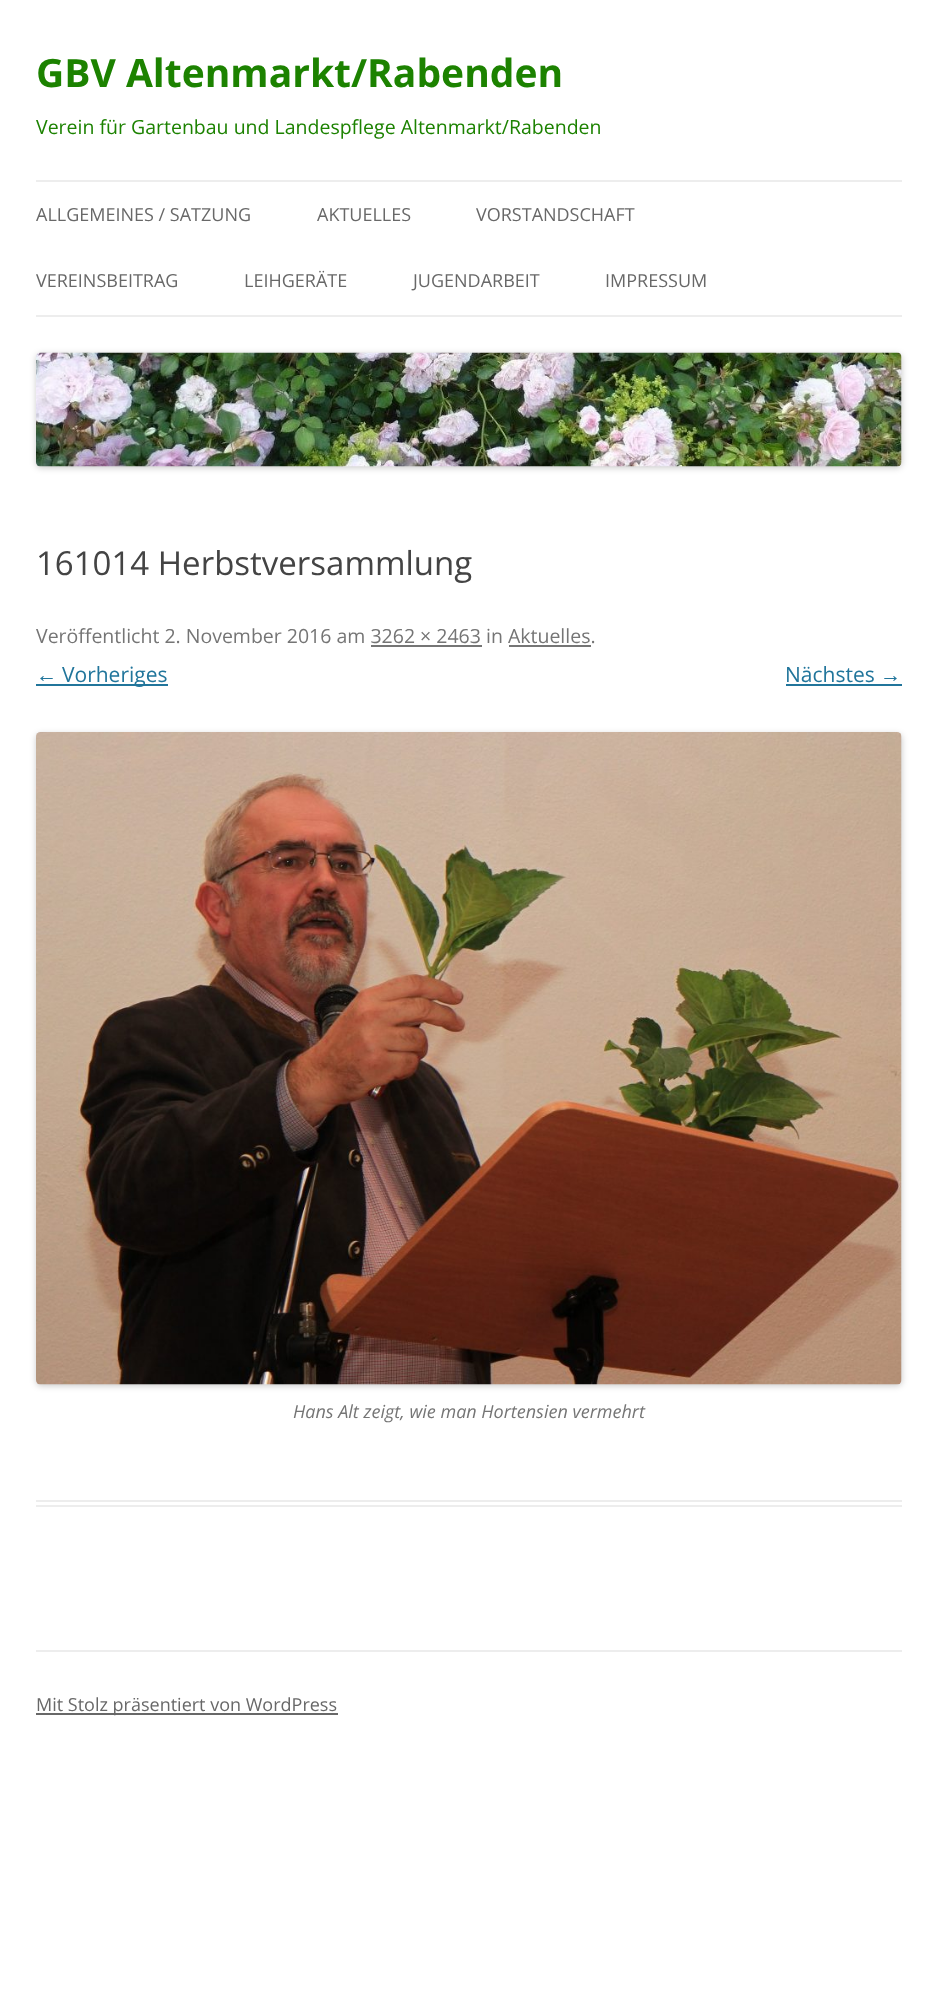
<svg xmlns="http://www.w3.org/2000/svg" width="937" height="1990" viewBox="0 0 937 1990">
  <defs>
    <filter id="blur1" x="-50%" y="-200%" width="200%" height="500%"><feGaussianBlur stdDeviation="3"/></filter>
  </defs>
  <rect width="100%" height="100%" fill="#ffffff"/>
  <text x="36" y="87" font-family="Open Sans" font-size="39" font-weight="bold" fill="#1c8200">GBV Altenmarkt/Rabenden</text>
  <text x="36" y="134" font-family="Open Sans" font-size="19.5" fill="#1c8200">Verein für Gartenbau und Landespflege Altenmarkt/Rabenden</text>
  <rect x="36" y="180" width="866" height="2" fill="#ededed"/>
  <rect x="36" y="315" width="866" height="2" fill="#ededed"/>
  <text x="36" y="221" font-family="Open Sans" font-size="18" fill="#686868">ALLGEMEINES / SATZUNG</text>
  <text x="317" y="221" font-family="Open Sans" font-size="18" fill="#686868">AKTUELLES</text>
  <text x="476" y="221" font-family="Open Sans" font-size="18" fill="#686868">VORSTANDSCHAFT</text>
  <text x="36" y="287" font-family="Open Sans" font-size="18" fill="#686868">VEREINSBEITRAG</text>
  <text x="244" y="287" font-family="Open Sans" font-size="18" fill="#686868">LEIHGERÄTE</text>
  <text x="413" y="287" font-family="Open Sans" font-size="18" fill="#686868">JUGENDARBEIT</text>
  <text x="605" y="287" font-family="Open Sans" font-size="18" fill="#686868">IMPRESSUM</text>
  <rect x="36" y="354" width="866" height="114" rx="5" fill="#000000" fill-opacity="0.2" filter="url(#blur1)"/>
  <image x="36" y="352" width="866" height="115" href="img1.png"/>
  <rect x="36" y="1500" width="866" height="2" fill="#ededed"/>
  <rect x="36" y="1505" width="866" height="2" fill="#ededed"/>
  <text x="36" y="575" font-family="Open Sans" font-size="33" fill="#444444">161014 Herbstversammlung</text>
  <text x="36" y="643" font-family="Open Sans" font-size="19.5" fill="#757575">Veröffentlicht 2. November 2016 am 3262 × 2463 in Aktuelles.</text>
  <rect x="371" y="645" width="111" height="2" fill="#757575"/>
  <rect x="509" y="645" width="82" height="2" fill="#757575"/>
  <text x="36" y="682" font-family="Liberation Sans" font-size="21" fill="#21759b">←</text>
  <rect x="36" y="684" width="132" height="2" fill="#21759b"/>
  <text x="62" y="682" font-family="Open Sans" font-size="21" fill="#21759b">Vorheriges</text>
  <text x="785" y="682" font-family="Open Sans" font-size="21" fill="#21759b">Nächstes</text>
  <text x="880" y="682" font-family="Liberation Sans" font-size="21" fill="#21759b">→</text>
  <rect x="786" y="684" width="116" height="2" fill="#21759b"/>
  <rect x="36" y="734" width="866" height="652" rx="5" fill="#000000" fill-opacity="0.2" filter="url(#blur1)"/>
  <image x="36" y="732" width="866" height="653" href="img2.png"/>
  <text x="293" y="1418" font-family="Open Sans" font-size="18" font-style="italic" fill="#757575">Hans Alt zeigt, wie man Hortensien vermehrt</text>
  <rect x="36" y="1650" width="866" height="2" fill="#ededed"/>
  <rect x="36" y="1713" width="302" height="2" fill="#686868"/>
  <text x="36" y="1711" font-family="Open Sans" font-size="18" fill="#686868">Mit Stolz präsentiert von WordPress</text>
</svg>
